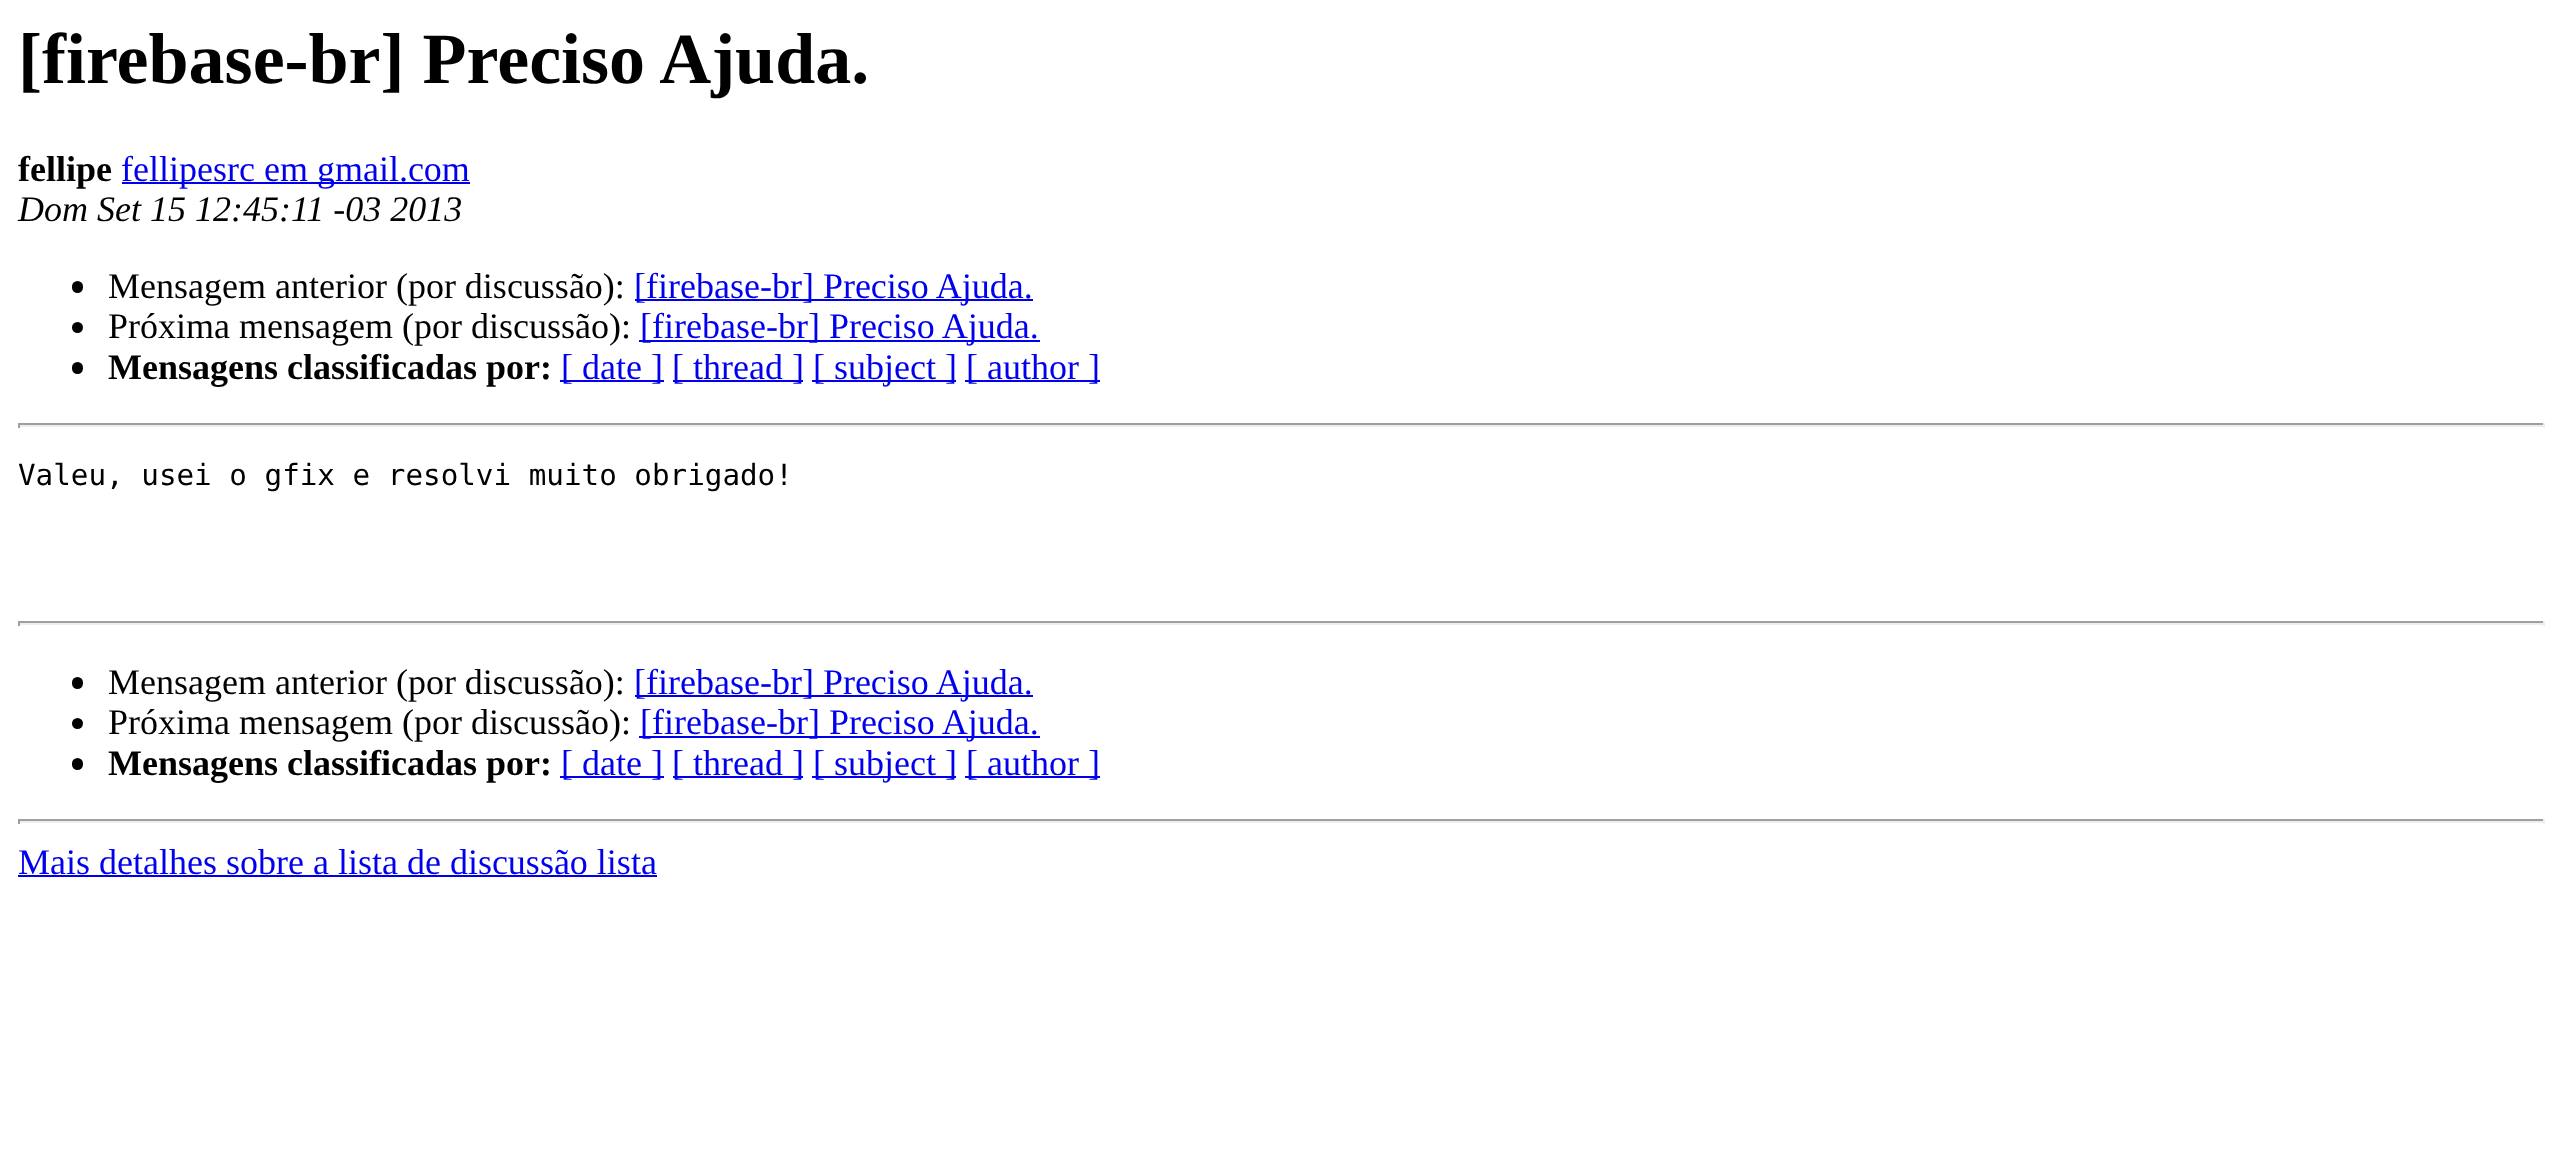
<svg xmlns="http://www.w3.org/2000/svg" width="2562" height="1160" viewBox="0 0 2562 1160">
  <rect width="100%" height="100%" fill="#ffffff"/>
  <text x="18" y="83" font-family="Liberation Serif" font-size="72" font-weight="bold" fill="#000000">[firebase-br] Preciso Ajuda.</text>
  <text x="18" y="181" font-family="Liberation Serif" font-size="36" font-weight="bold" fill="#000000">fellipe</text>
  <rect x="122" y="182" width="348" height="2" fill="#0000ee"/>
  <text x="121" y="181" font-family="Liberation Serif" font-size="36" fill="#0000ee">fellipesrc em gmail.com</text>
  <text x="18" y="221" font-family="Liberation Serif" font-size="36" font-style="italic" fill="#000000">Dom Set 15 12:45:11 -03 2013</text>
  <rect x="72" y="281" width="11" height="12" rx="5.5" fill="#000000"/>
  <text x="108" y="298" font-family="Liberation Serif" font-size="36" fill="#000000">Mensagem anterior (por discussão):</text>
  <rect x="635" y="299" width="398" height="2" fill="#0000ee"/>
  <text x="634" y="298" font-family="Liberation Serif" font-size="36" fill="#0000ee">[firebase-br] Preciso Ajuda.</text>
  <circle cx="77.5" cy="327.5" r="5.5" fill="#000000"/>
  <text x="108" y="338" font-family="Liberation Serif" font-size="36" fill="#000000">Próxima mensagem (por discussão):</text>
  <rect x="639" y="340" width="401" height="2" fill="#0000ee"/>
  <text x="640" y="338" font-family="Liberation Serif" font-size="36" fill="#0000ee">[firebase-br] Preciso Ajuda.</text>
  <rect x="72" y="362" width="11" height="12" rx="5.5" fill="#000000"/>
  <text x="108" y="379" font-family="Liberation Serif" font-size="36" font-weight="bold" fill="#000000">Mensagens classificadas por:</text>
  <rect x="560" y="380" width="104" height="2" fill="#0000ee"/>
  <text x="561" y="379" font-family="Liberation Serif" font-size="36" fill="#0000ee">[ date ]</text>
  <rect x="673" y="380" width="130" height="2" fill="#0000ee"/>
  <text x="672" y="379" font-family="Liberation Serif" font-size="36" fill="#0000ee">[ thread ]</text>
  <rect x="812" y="380" width="144" height="2" fill="#0000ee"/>
  <text x="813" y="379" font-family="Liberation Serif" font-size="36" fill="#0000ee">[ subject ]</text>
  <rect x="965" y="380" width="135" height="2" fill="#0000ee"/>
  <text x="966" y="379" font-family="Liberation Serif" font-size="36" fill="#0000ee">[ author ]</text>
  <rect x="18" y="423" width="2527" height="2" fill="#9f9f9f"/>
  <rect x="2543" y="423" width="2" height="5" fill="#eeeeee"/>
  <rect x="18" y="425" width="2527" height="2" fill="#eeeeee"/>
  <rect x="18" y="423" width="2" height="5" fill="#9f9f9f"/>
  <text x="18" y="485" font-family="DejaVu Sans Mono" font-size="29.25" fill="#000000">Valeu, usei o gfix e resolvi muito obrigado!</text>
  <rect x="18" y="621" width="2527" height="2" fill="#9f9f9f"/>
  <rect x="2543" y="621" width="2" height="5" fill="#eeeeee"/>
  <rect x="18" y="623" width="2527" height="2" fill="#eeeeee"/>
  <rect x="18" y="621" width="2" height="5" fill="#9f9f9f"/>
  <rect x="72" y="677" width="11" height="12" rx="5.5" fill="#000000"/>
  <text x="108" y="694" font-family="Liberation Serif" font-size="36" fill="#000000">Mensagem anterior (por discussão):</text>
  <rect x="635" y="695" width="398" height="2" fill="#0000ee"/>
  <text x="634" y="694" font-family="Liberation Serif" font-size="36" fill="#0000ee">[firebase-br] Preciso Ajuda.</text>
  <circle cx="77.5" cy="723.5" r="5.5" fill="#000000"/>
  <text x="108" y="734" font-family="Liberation Serif" font-size="36" fill="#000000">Próxima mensagem (por discussão):</text>
  <rect x="639" y="736" width="401" height="2" fill="#0000ee"/>
  <text x="640" y="734" font-family="Liberation Serif" font-size="36" fill="#0000ee">[firebase-br] Preciso Ajuda.</text>
  <rect x="72" y="758" width="11" height="12" rx="5.5" fill="#000000"/>
  <text x="108" y="775" font-family="Liberation Serif" font-size="36" font-weight="bold" fill="#000000">Mensagens classificadas por:</text>
  <rect x="560" y="776" width="104" height="2" fill="#0000ee"/>
  <text x="561" y="775" font-family="Liberation Serif" font-size="36" fill="#0000ee">[ date ]</text>
  <rect x="673" y="776" width="130" height="2" fill="#0000ee"/>
  <text x="672" y="775" font-family="Liberation Serif" font-size="36" fill="#0000ee">[ thread ]</text>
  <rect x="812" y="776" width="144" height="2" fill="#0000ee"/>
  <text x="813" y="775" font-family="Liberation Serif" font-size="36" fill="#0000ee">[ subject ]</text>
  <rect x="965" y="776" width="135" height="2" fill="#0000ee"/>
  <text x="966" y="775" font-family="Liberation Serif" font-size="36" fill="#0000ee">[ author ]</text>
  <rect x="18" y="819" width="2527" height="2" fill="#9f9f9f"/>
  <rect x="2543" y="819" width="2" height="5" fill="#eeeeee"/>
  <rect x="18" y="821" width="2527" height="2" fill="#eeeeee"/>
  <rect x="18" y="819" width="2" height="5" fill="#9f9f9f"/>
  <text x="18" y="874" font-family="Liberation Serif" font-size="36" fill="#0000ee">Mais detalhes sobre a lista de discussão lista</text>
  <rect x="18" y="875" width="639" height="2" fill="#0000ee"/>
</svg>
